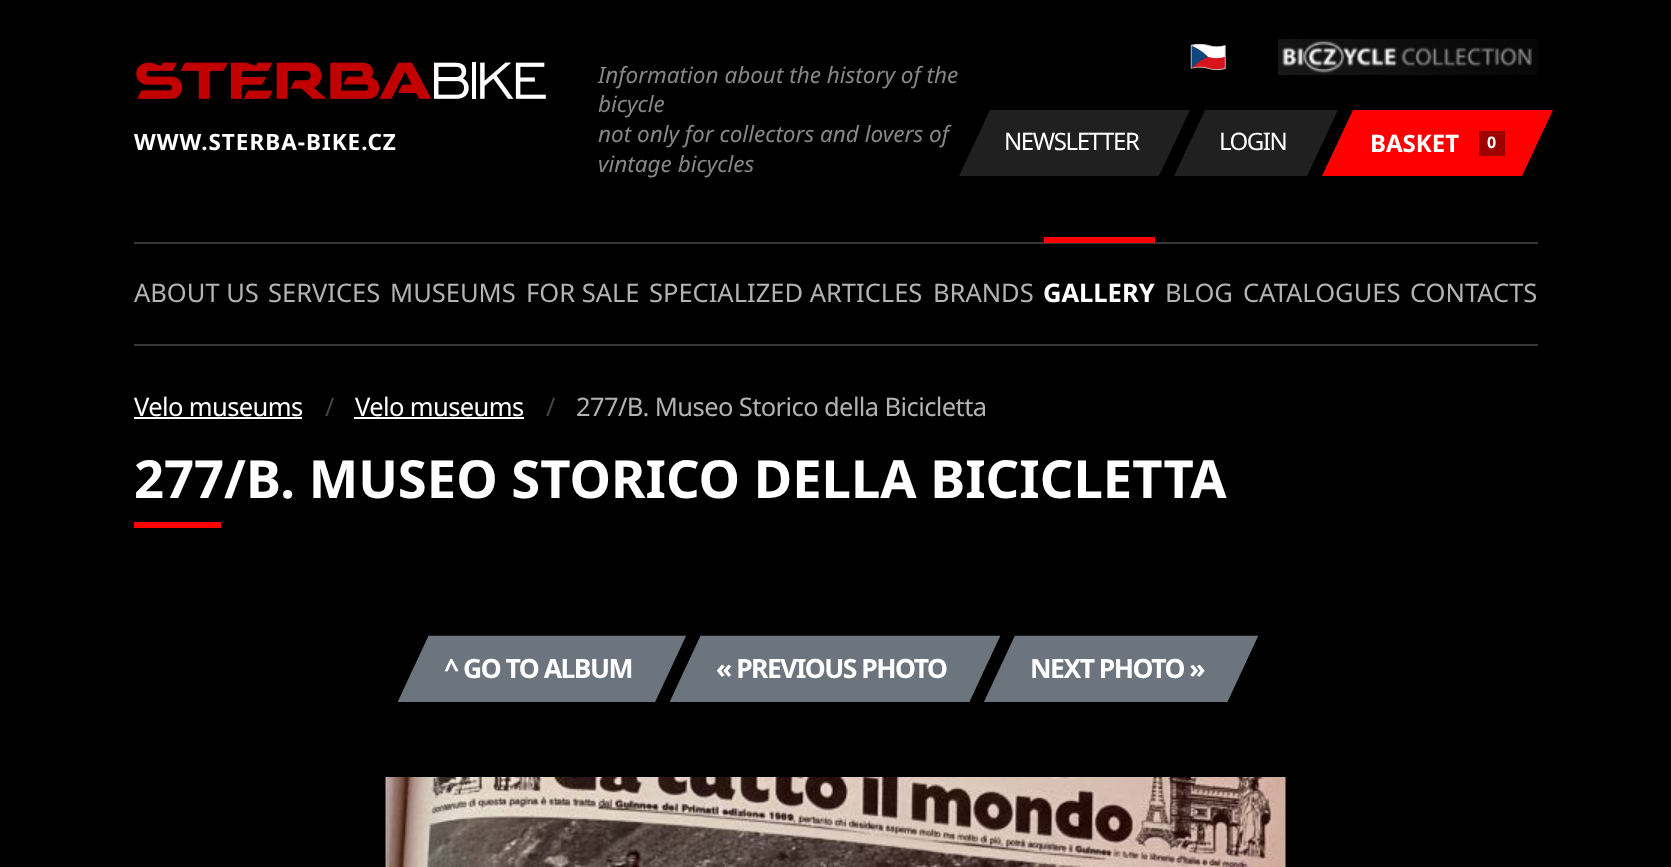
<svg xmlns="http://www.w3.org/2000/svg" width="1671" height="867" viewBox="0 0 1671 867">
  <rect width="100%" height="100%" fill="#000000"/>
  <image x="136" y="62" width="410" height="37" href="img1.png"/>
  <text x="134" y="150" font-family="Noto Sans" font-size="22.5" font-weight="bold" letter-spacing="1" fill="#ffffff">WWW.STERBA-BIKE.CZ</text>
  <text x="598" y="83" font-family="Noto Sans" font-size="22.5" font-style="italic" fill="#878787">Information about the history of the</text>
  <text x="598" y="112" font-family="Noto Sans" font-size="22.5" font-style="italic" fill="#878787">bicycle</text>
  <text x="598" y="142" font-family="Noto Sans" font-size="22.5" font-style="italic" fill="#878787">not only for collectors and lovers of</text>
  <text x="598" y="172" font-family="Noto Sans" font-size="22.5" font-style="italic" fill="#878787">vintage bicycles</text>
  <image x="1190" y="44" width="36" height="27" href="img2.png"/>
  <image x="1278" y="39" width="260" height="36" href="img3.png"/>
  <path d="M990 110H1190L1159 176H959Z" fill="#202020"/>
  <text x="1004" y="150" font-family="Noto Sans" font-size="24" letter-spacing="-1.4" fill="#ffffff">NEWSLETTER</text>
  <path d="M1205 110H1338L1307 176H1174Z" fill="#202020"/>
  <text x="1219" y="150" font-family="Noto Sans" font-size="24" letter-spacing="-1.5" fill="#ffffff">LOGIN</text>
  <path d="M1353 110H1553L1522 176H1322Z" fill="#ff0000"/>
  <text x="1370" y="152" font-family="Noto Sans" font-size="24" font-weight="bold" fill="#ffffff">BASKET</text>
  <rect x="1479" y="131" width="26" height="25" fill="#9e0000"/>
  <text x="1487" y="148" font-family="Noto Sans" font-size="16" font-weight="bold" fill="#ffffff">0</text>
  <rect x="134" y="242" width="1404" height="2" fill="#373737"/>
  <rect x="134" y="344" width="1404" height="2" fill="#373737"/>
  <text x="134" y="302" font-family="Noto Sans" font-size="25.5" fill="#b3b3b3">ABOUT US</text>
  <text x="268" y="302" font-family="Noto Sans" font-size="25.5" fill="#b3b3b3">SERVICES</text>
  <text x="390" y="302" font-family="Noto Sans" font-size="25.5" fill="#b3b3b3">MUSEUMS</text>
  <text x="526" y="302" font-family="Noto Sans" font-size="25.5" fill="#b3b3b3">FOR SALE</text>
  <text x="649" y="302" font-family="Noto Sans" font-size="25.5" fill="#b3b3b3">SPECIALIZED ARTICLES</text>
  <text x="933" y="302" font-family="Noto Sans" font-size="25.5" fill="#b3b3b3">BRANDS</text>
  <rect x="1044" y="237" width="111" height="6" fill="#ff0000"/>
  <text x="1043" y="302" font-family="Noto Sans" font-size="25.5" font-weight="bold" fill="#ffffff">GALLERY</text>
  <text x="1165" y="302" font-family="Noto Sans" font-size="25.5" fill="#b3b3b3">BLOG</text>
  <text x="1243" y="302" font-family="Noto Sans" font-size="25.5" fill="#b3b3b3">CATALOGUES</text>
  <text x="1410" y="302" font-family="Noto Sans" font-size="25.5" fill="#b3b3b3">CONTACTS</text>
  <text x="134" y="416" font-family="Noto Sans" font-size="25.5" letter-spacing="-0.6" fill="#ffffff">Velo museums</text>
  <rect x="134" y="417" width="168" height="2" fill="#ffffff"/>
  <text x="325" y="416" font-family="Noto Sans" font-size="25.5" letter-spacing="-0.6" fill="#434343">/</text>
  <text x="355" y="416" font-family="Noto Sans" font-size="25.5" letter-spacing="-0.6" fill="#ffffff">Velo museums</text>
  <rect x="354" y="417" width="170" height="2" fill="#ffffff"/>
  <text x="546" y="416" font-family="Noto Sans" font-size="25.5" letter-spacing="-0.6" fill="#434343">/</text>
  <text x="576" y="416" font-family="Noto Sans" font-size="25.5" letter-spacing="-0.6" fill="#b3b3b3">277/B. Museo Storico della Bicicletta</text>
  <text x="134" y="498" font-family="Noto Sans" font-size="52.5" font-weight="bold" fill="#ffffff">277/B. MUSEO STORICO DELLA BICICLETTA</text>
  <rect x="134" y="522" width="87" height="6" fill="#ff0000"/>
  <path d="M429 636H686L655 702H398Z" fill="#6c757d"/>
  <path d="M429 636.5H684.5L654.5 701H399Z" fill="none" stroke="#6c757d" stroke-width="1.5"/>
  <text x="444" y="678" font-family="Noto Sans" font-size="26.5" font-weight="bold" letter-spacing="-1.5" fill="#ffffff">^ GO TO ALBUM</text>
  <path d="M701 636H1000L969 702H670Z" fill="#6c757d"/>
  <path d="M701 636.5H999L969 701H671Z" fill="none" stroke="#6c757d" stroke-width="1.5"/>
  <text x="716" y="678" font-family="Noto Sans" font-size="26.5" font-weight="bold" letter-spacing="-1.5" fill="#ffffff">« PREVIOUS PHOTO</text>
  <path d="M1015 636H1258L1227 702H984Z" fill="#6c757d"/>
  <path d="M1015.5 636.5H1257L1227 701H985.5Z" fill="none" stroke="#6c757d" stroke-width="1.5"/>
  <text x="1030" y="678" font-family="Noto Sans" font-size="26.5" font-weight="bold" letter-spacing="-1.5" fill="#ffffff">NEXT PHOTO »</text>
  <image x="385" y="777" width="901" height="90" href="img4.png"/>
</svg>
